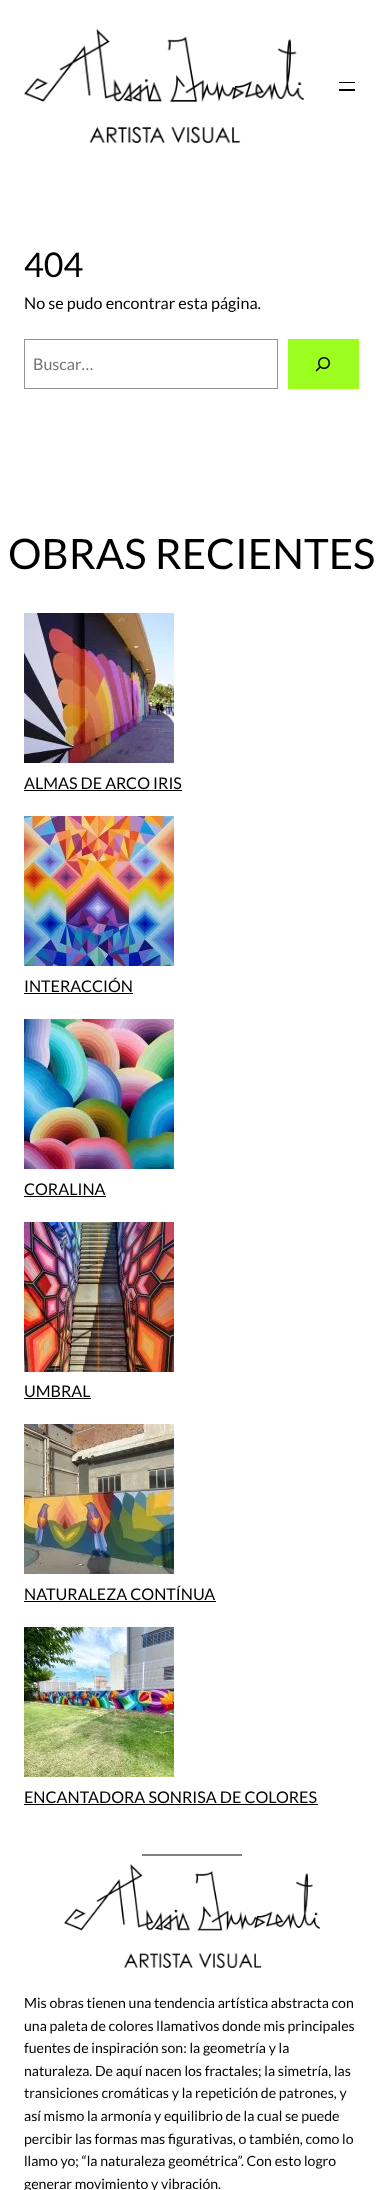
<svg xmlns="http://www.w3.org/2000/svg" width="383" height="2190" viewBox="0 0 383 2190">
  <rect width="100%" height="100%" fill="#ffffff"/>
  <image x="24" y="29" width="280" height="114" href="img1.png"/>
  <rect x="339" y="82" width="16" height="1" fill="#000000"/>
  <rect x="339" y="89" width="16" height="2" fill="#000000"/>
  <text x="24" y="277" font-family="Lato" font-size="34" fill="#000000">404</text>
  <text x="24" y="309" font-family="Lato" font-size="16.1" fill="#000000">No se pudo encontrar esta página.</text>
  <rect x="24.5" y="339.5" width="253" height="49" fill="none" stroke="#949494"/>
  <text x="33" y="370" font-family="Lato" font-size="16.1" fill="#757575">Buscar…</text>
  <rect x="288" y="339" width="71" height="50" fill="#9dff20"/>
  <image x="315" y="357" width="16" height="15" href="img2.png"/>
  <text x="8" y="569" font-family="Lato" font-size="42" fill="#000000">OBRAS RECIENTES</text>
  <image x="24" y="613" width="150" height="150" href="img3.png"/>
  <text x="24" y="789" font-family="Lato" font-size="16.1" fill="#000000">ALMAS DE ARCO IRIS</text>
  <rect x="24" y="790" width="158" height="1" fill="#000000"/>
  <image x="24" y="816" width="150" height="150" href="img4.png"/>
  <text x="24" y="992" font-family="Lato" font-size="16.1" fill="#000000">INTERACCIÓN</text>
  <rect x="24" y="993" width="109" height="1" fill="#000000"/>
  <image x="24" y="1019" width="150" height="150" href="img5.png"/>
  <text x="24" y="1195" font-family="Lato" font-size="16.1" fill="#000000">CORALINA</text>
  <rect x="24" y="1196" width="82" height="1" fill="#000000"/>
  <image x="24" y="1222" width="150" height="150" href="img6.png"/>
  <text x="24" y="1397" font-family="Lato" font-size="16.1" fill="#000000">UMBRAL</text>
  <rect x="24" y="1398" width="67" height="1" fill="#000000"/>
  <image x="24" y="1424" width="150" height="150" href="img7.png"/>
  <text x="24" y="1600" font-family="Lato" font-size="16.1" fill="#000000">NATURALEZA CONTÍNUA</text>
  <rect x="24" y="1601" width="192" height="1" fill="#000000"/>
  <image x="24" y="1627" width="150" height="150" href="img8.png"/>
  <text x="24" y="1803" font-family="Lato" font-size="16.1" fill="#000000">ENCANTADORA SONRISA DE COLORES</text>
  <rect x="24" y="1804" width="294" height="1" fill="#000000"/>
  <rect x="142" y="1854" width="100" height="2" fill="#808080"/>
  <image x="64" y="1864" width="256" height="104" href="img9.png"/>
  <text x="24" y="2008" font-family="Lato" font-size="14.1" fill="#000000">Mis obras tienen una tendencia artística abstracta con</text>
  <text x="24" y="2031" font-family="Lato" font-size="14.1" fill="#000000">una paleta de colores llamativos donde mis principales</text>
  <text x="24" y="2053" font-family="Lato" font-size="14.1" fill="#000000">fuentes de inspiración son: la geometría y la</text>
  <text x="24" y="2076" font-family="Lato" font-size="14.1" fill="#000000">naturaleza. De aquí nacen los fractales; la simetría, las</text>
  <text x="24" y="2098" font-family="Lato" font-size="14.1" fill="#000000">transiciones cromáticas y la repetición de patrones, y</text>
  <text x="24" y="2121" font-family="Lato" font-size="14.1" fill="#000000">así mismo la armonía y equilibrio de la cual se puede</text>
  <text x="24" y="2144" font-family="Lato" font-size="14.1" fill="#000000">percibir las formas mas figurativas, o también, como lo</text>
  <text x="24" y="2166" font-family="Lato" font-size="14.1" fill="#000000">llamo yo; “la naturaleza geométrica”. Con esto logro</text>
  <text x="24" y="2189" font-family="Lato" font-size="14.1" fill="#000000">generar movimiento y vibración.</text>
</svg>
